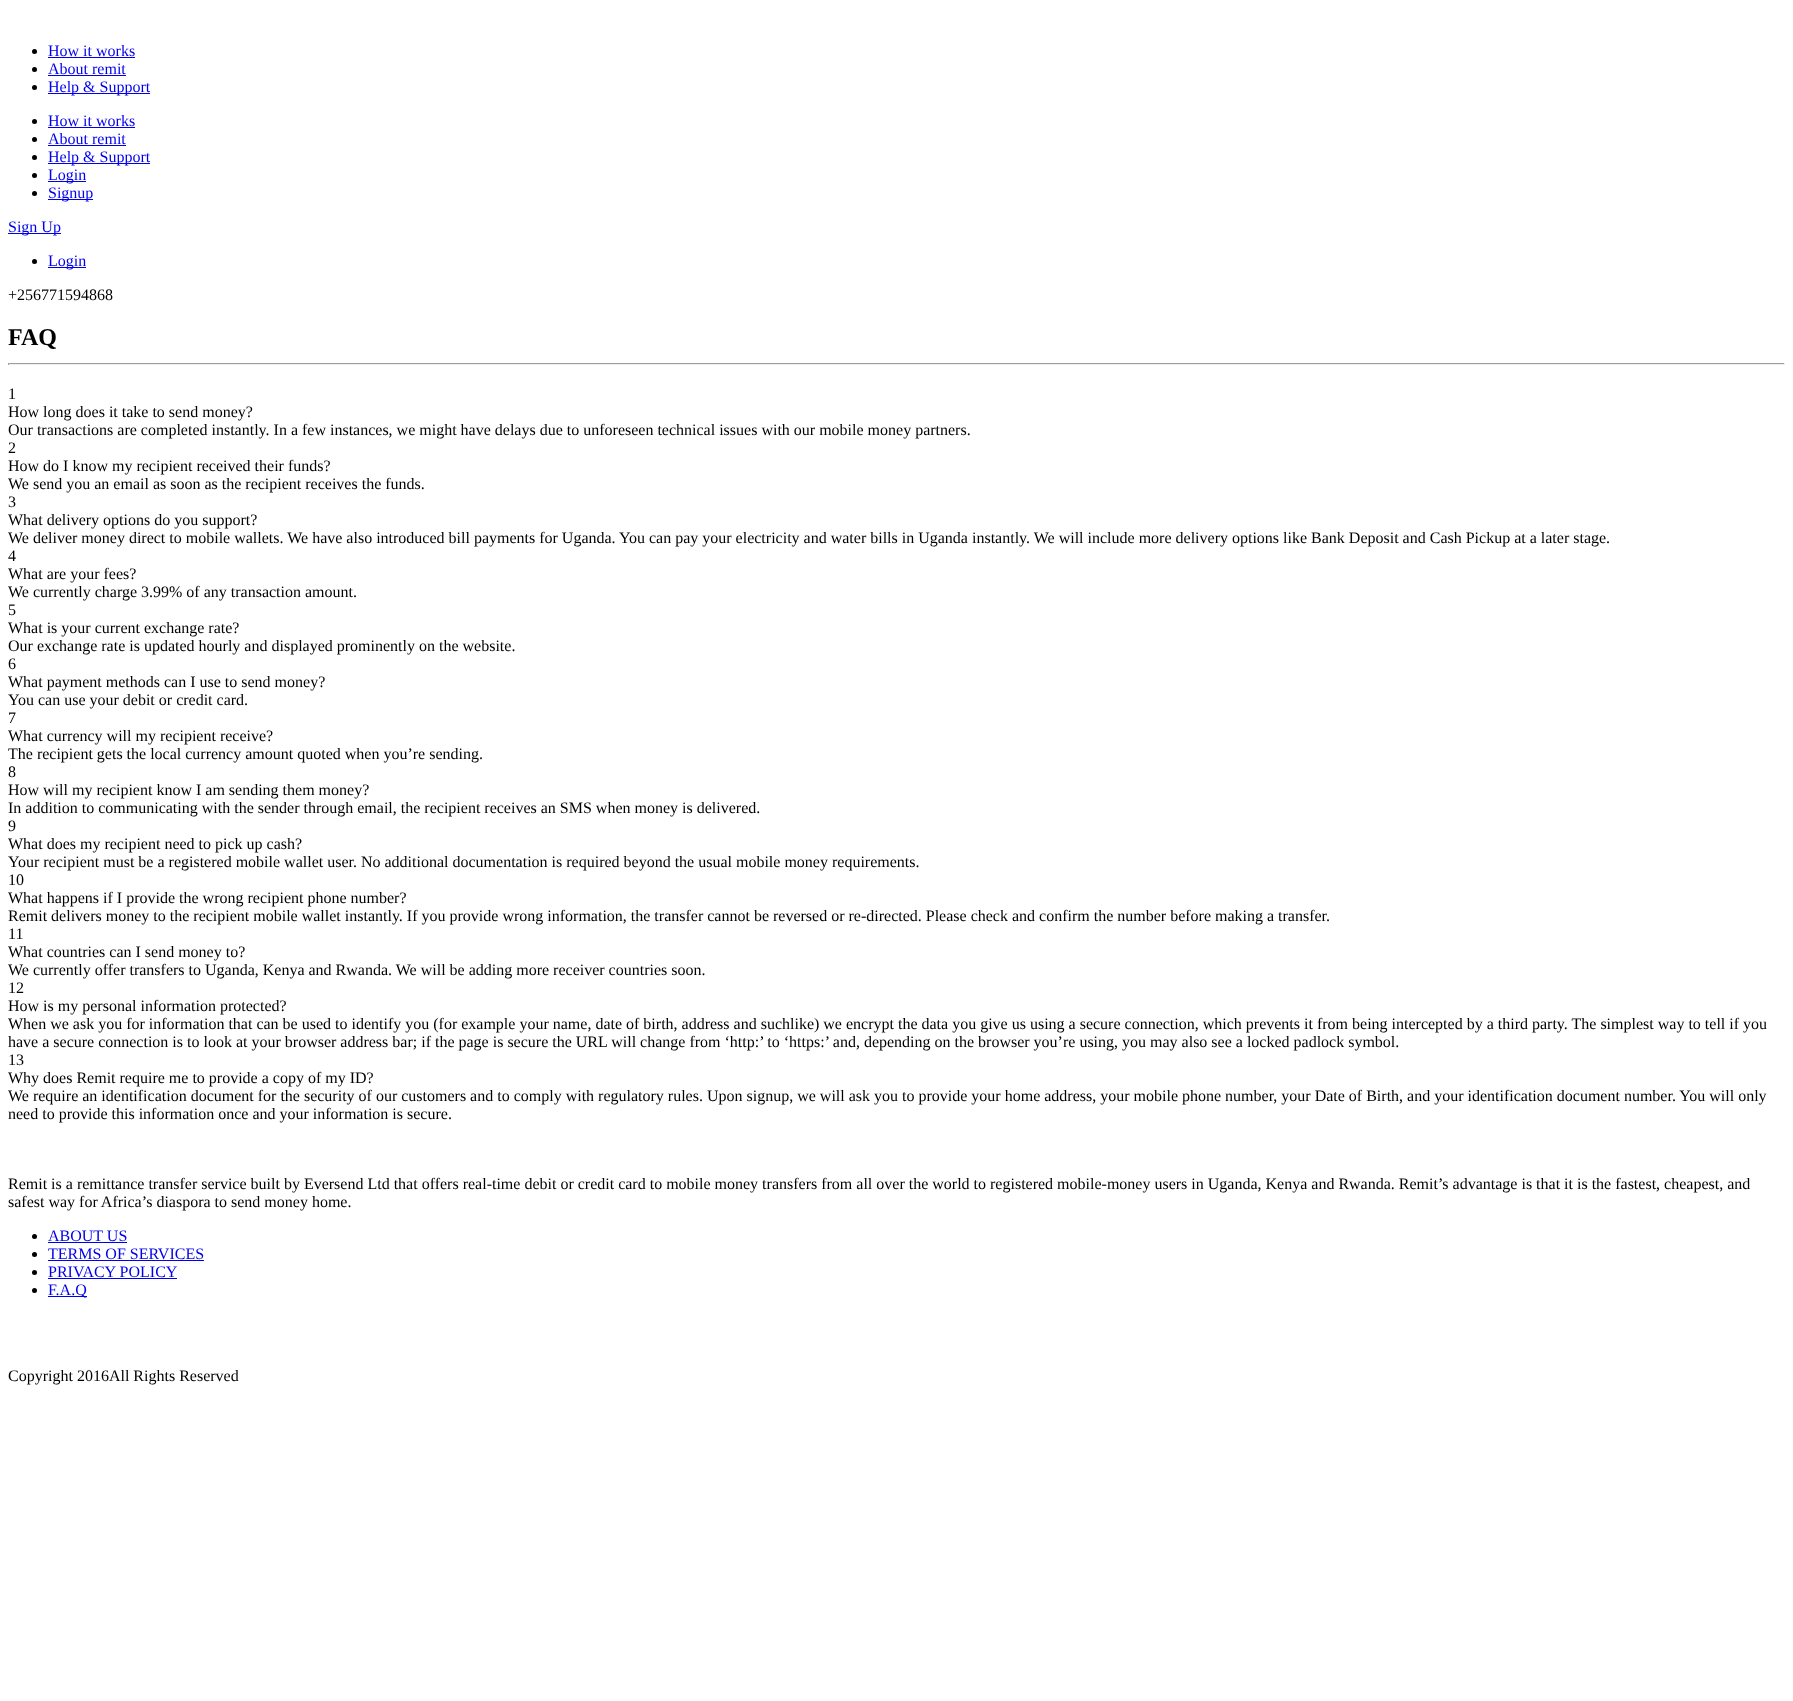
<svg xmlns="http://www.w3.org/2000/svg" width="1793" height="1701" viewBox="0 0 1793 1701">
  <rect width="100%" height="100%" fill="#ffffff"/>
  <circle cx="34.5" cy="51.5" r="2.5" fill="#000000"/>
  <text x="48" y="56" font-family="Liberation Serif" font-size="16" fill="#0000ee">How it works</text>
  <rect x="48" y="57" width="87" height="1" fill="#0000ee"/>
  <circle cx="34.5" cy="69.5" r="2.5" fill="#000000"/>
  <text x="48" y="74" font-family="Liberation Serif" font-size="16" fill="#0000ee">About remit</text>
  <rect x="48" y="75" width="78" height="1" fill="#0000ee"/>
  <circle cx="34.5" cy="87.5" r="2.5" fill="#000000"/>
  <rect x="48" y="93" width="102" height="1" fill="#0000ee"/>
  <text x="48" y="92" font-family="Liberation Serif" font-size="16" fill="#0000ee">Help &amp; Support</text>
  <circle cx="34.5" cy="121.5" r="2.5" fill="#000000"/>
  <text x="48" y="126" font-family="Liberation Serif" font-size="16" fill="#0000ee">How it works</text>
  <rect x="48" y="127" width="87" height="1" fill="#0000ee"/>
  <circle cx="34.5" cy="139.5" r="2.5" fill="#000000"/>
  <text x="48" y="144" font-family="Liberation Serif" font-size="16" fill="#0000ee">About remit</text>
  <rect x="48" y="145" width="78" height="1" fill="#0000ee"/>
  <circle cx="34.5" cy="157.5" r="2.5" fill="#000000"/>
  <rect x="48" y="163" width="102" height="1" fill="#0000ee"/>
  <text x="48" y="162" font-family="Liberation Serif" font-size="16" fill="#0000ee">Help &amp; Support</text>
  <circle cx="34.5" cy="175.5" r="2.5" fill="#000000"/>
  <rect x="48" y="181" width="38" height="1" fill="#0000ee"/>
  <text x="48" y="180" font-family="Liberation Serif" font-size="16" fill="#0000ee">Login</text>
  <circle cx="34.5" cy="193.5" r="2.5" fill="#000000"/>
  <rect x="48" y="199" width="45" height="1" fill="#0000ee"/>
  <text x="48" y="198" font-family="Liberation Serif" font-size="16" fill="#0000ee">Signup</text>
  <rect x="8" y="233" width="53" height="1" fill="#0000ee"/>
  <text x="8" y="232" font-family="Liberation Serif" font-size="16" fill="#0000ee">Sign Up</text>
  <circle cx="34.5" cy="261.5" r="2.5" fill="#000000"/>
  <rect x="48" y="267" width="38" height="1" fill="#0000ee"/>
  <text x="48" y="266" font-family="Liberation Serif" font-size="16" fill="#0000ee">Login</text>
  <text x="8" y="300" font-family="Liberation Serif" font-size="16" fill="#000000">+256771594868</text>
  <text x="8" y="345" font-family="Liberation Serif" font-size="24" font-weight="bold" fill="#000000">FAQ</text>
  <rect x="8" y="363" width="1777" height="1" fill="#9f9f9f"/>
  <rect x="1784" y="363" width="1" height="2" fill="#eeeeee"/>
  <rect x="8" y="364" width="1777" height="1" fill="#eeeeee"/>
  <rect x="8" y="363" width="1" height="2" fill="#9f9f9f"/>
  <text x="8" y="399" font-family="Liberation Serif" font-size="16" fill="#000000">1</text>
  <text x="8" y="417" font-family="Liberation Serif" font-size="16" fill="#000000">How long does it take to send money?</text>
  <text x="8" y="435" font-family="Liberation Serif" font-size="16" fill="#000000">Our transactions are completed instantly. In a few instances, we might have delays due to unforeseen technical issues with our mobile money partners.</text>
  <text x="8" y="453" font-family="Liberation Serif" font-size="16" fill="#000000">2</text>
  <text x="8" y="471" font-family="Liberation Serif" font-size="16" fill="#000000">How do I know my recipient received their funds?</text>
  <text x="8" y="489" font-family="Liberation Serif" font-size="16" fill="#000000">We send you an email as soon as the recipient receives the funds.</text>
  <text x="8" y="507" font-family="Liberation Serif" font-size="16" fill="#000000">3</text>
  <text x="8" y="525" font-family="Liberation Serif" font-size="16" fill="#000000">What delivery options do you support?</text>
  <text x="8" y="543" font-family="Liberation Serif" font-size="16" fill="#000000">We deliver money direct to mobile wallets. We have also introduced bill payments for Uganda. You can pay your electricity and water bills in Uganda instantly. We will include more delivery options like Bank Deposit and Cash Pickup at a later stage.</text>
  <text x="8" y="561" font-family="Liberation Serif" font-size="16" fill="#000000">4</text>
  <text x="8" y="579" font-family="Liberation Serif" font-size="16" fill="#000000">What are your fees?</text>
  <text x="8" y="597" font-family="Liberation Serif" font-size="16" fill="#000000">We currently charge 3.99% of any transaction amount.</text>
  <text x="8" y="615" font-family="Liberation Serif" font-size="16" fill="#000000">5</text>
  <text x="8" y="633" font-family="Liberation Serif" font-size="16" fill="#000000">What is your current exchange rate?</text>
  <text x="8" y="651" font-family="Liberation Serif" font-size="16" fill="#000000">Our exchange rate is updated hourly and displayed prominently on the website.</text>
  <text x="8" y="669" font-family="Liberation Serif" font-size="16" fill="#000000">6</text>
  <text x="8" y="687" font-family="Liberation Serif" font-size="16" fill="#000000">What payment methods can I use to send money?</text>
  <text x="8" y="705" font-family="Liberation Serif" font-size="16" fill="#000000">You can use your debit or credit card.</text>
  <text x="8" y="723" font-family="Liberation Serif" font-size="16" fill="#000000">7</text>
  <text x="8" y="741" font-family="Liberation Serif" font-size="16" fill="#000000">What currency will my recipient receive?</text>
  <text x="8" y="759" font-family="Liberation Serif" font-size="16" fill="#000000">The recipient gets the local currency amount quoted when you’re sending.</text>
  <text x="8" y="777" font-family="Liberation Serif" font-size="16" fill="#000000">8</text>
  <text x="8" y="795" font-family="Liberation Serif" font-size="16" fill="#000000">How will my recipient know I am sending them money?</text>
  <text x="8" y="813" font-family="Liberation Serif" font-size="16" fill="#000000">In addition to communicating with the sender through email, the recipient receives an SMS when money is delivered.</text>
  <text x="8" y="831" font-family="Liberation Serif" font-size="16" fill="#000000">9</text>
  <text x="8" y="849" font-family="Liberation Serif" font-size="16" fill="#000000">What does my recipient need to pick up cash?</text>
  <text x="8" y="867" font-family="Liberation Serif" font-size="16" fill="#000000">Your recipient must be a registered mobile wallet user. No additional documentation is required beyond the usual mobile money requirements.</text>
  <text x="8" y="885" font-family="Liberation Serif" font-size="16" fill="#000000">10</text>
  <text x="8" y="903" font-family="Liberation Serif" font-size="16" fill="#000000">What happens if I provide the wrong recipient phone number?</text>
  <text x="8" y="921" font-family="Liberation Serif" font-size="16" fill="#000000">Remit delivers money to the recipient mobile wallet instantly. If you provide wrong information, the transfer cannot be reversed or re-directed. Please check and confirm the number before making a transfer.</text>
  <text x="8" y="939" font-family="Liberation Serif" font-size="16" fill="#000000">11</text>
  <text x="8" y="957" font-family="Liberation Serif" font-size="16" fill="#000000">What countries can I send money to?</text>
  <text x="8" y="975" font-family="Liberation Serif" font-size="16" fill="#000000">We currently offer transfers to Uganda, Kenya and Rwanda. We will be adding more receiver countries soon.</text>
  <text x="8" y="993" font-family="Liberation Serif" font-size="16" fill="#000000">12</text>
  <text x="8" y="1011" font-family="Liberation Serif" font-size="16" fill="#000000">How is my personal information protected?</text>
  <text x="8" y="1029" font-family="Liberation Serif" font-size="16" fill="#000000">When we ask you for information that can be used to identify you (for example your name, date of birth, address and suchlike) we encrypt the data you give us using a secure connection, which prevents it from being intercepted by a third party. The simplest way to tell if you</text>
  <text x="8" y="1047" font-family="Liberation Serif" font-size="16" fill="#000000">have a secure connection is to look at your browser address bar; if the page is secure the URL will change from ‘http:’ to ‘https:’ and, depending on the browser you’re using, you may also see a locked padlock symbol.</text>
  <text x="8" y="1065" font-family="Liberation Serif" font-size="16" fill="#000000">13</text>
  <text x="8" y="1083" font-family="Liberation Serif" font-size="16" fill="#000000">Why does Remit require me to provide a copy of my ID?</text>
  <text x="8" y="1101" font-family="Liberation Serif" font-size="16" fill="#000000">We require an identification document for the security of our customers and to comply with regulatory rules. Upon signup, we will ask you to provide your home address, your mobile phone number, your Date of Birth, and your identification document number. You will only</text>
  <text x="8" y="1119" font-family="Liberation Serif" font-size="16" fill="#000000">need to provide this information once and your information is secure.</text>
  <text x="8" y="1189" font-family="Liberation Serif" font-size="16" fill="#000000">Remit is a remittance transfer service built by Eversend Ltd that offers real-time debit or credit card to mobile money transfers from all over the world to registered mobile-money users in Uganda, Kenya and Rwanda. Remit’s advantage is that it is the fastest, cheapest, and</text>
  <text x="8" y="1207" font-family="Liberation Serif" font-size="16" fill="#000000">safest way for Africa’s diaspora to send money home.</text>
  <circle cx="34.5" cy="1236.5" r="2.5" fill="#000000"/>
  <text x="48" y="1241" font-family="Liberation Serif" font-size="16" fill="#0000ee">ABOUT US</text>
  <rect x="48" y="1242" width="79" height="1" fill="#0000ee"/>
  <circle cx="34.5" cy="1254.5" r="2.5" fill="#000000"/>
  <text x="48" y="1259" font-family="Liberation Serif" font-size="16" fill="#0000ee">TERMS OF SERVICES</text>
  <rect x="48" y="1260" width="156" height="1" fill="#0000ee"/>
  <circle cx="34.5" cy="1272.5" r="2.5" fill="#000000"/>
  <text x="48" y="1277" font-family="Liberation Serif" font-size="16" fill="#0000ee">PRIVACY POLICY</text>
  <rect x="48" y="1278" width="129" height="1" fill="#0000ee"/>
  <circle cx="34.5" cy="1290.5" r="2.5" fill="#000000"/>
  <rect x="48" y="1296" width="39" height="1" fill="#0000ee"/>
  <text x="48" y="1295" font-family="Liberation Serif" font-size="16" fill="#0000ee">F.A.Q</text>
  <text x="8" y="1381" font-family="Liberation Serif" font-size="16" fill="#000000">Copyright 2016All Rights Reserved</text>
</svg>
